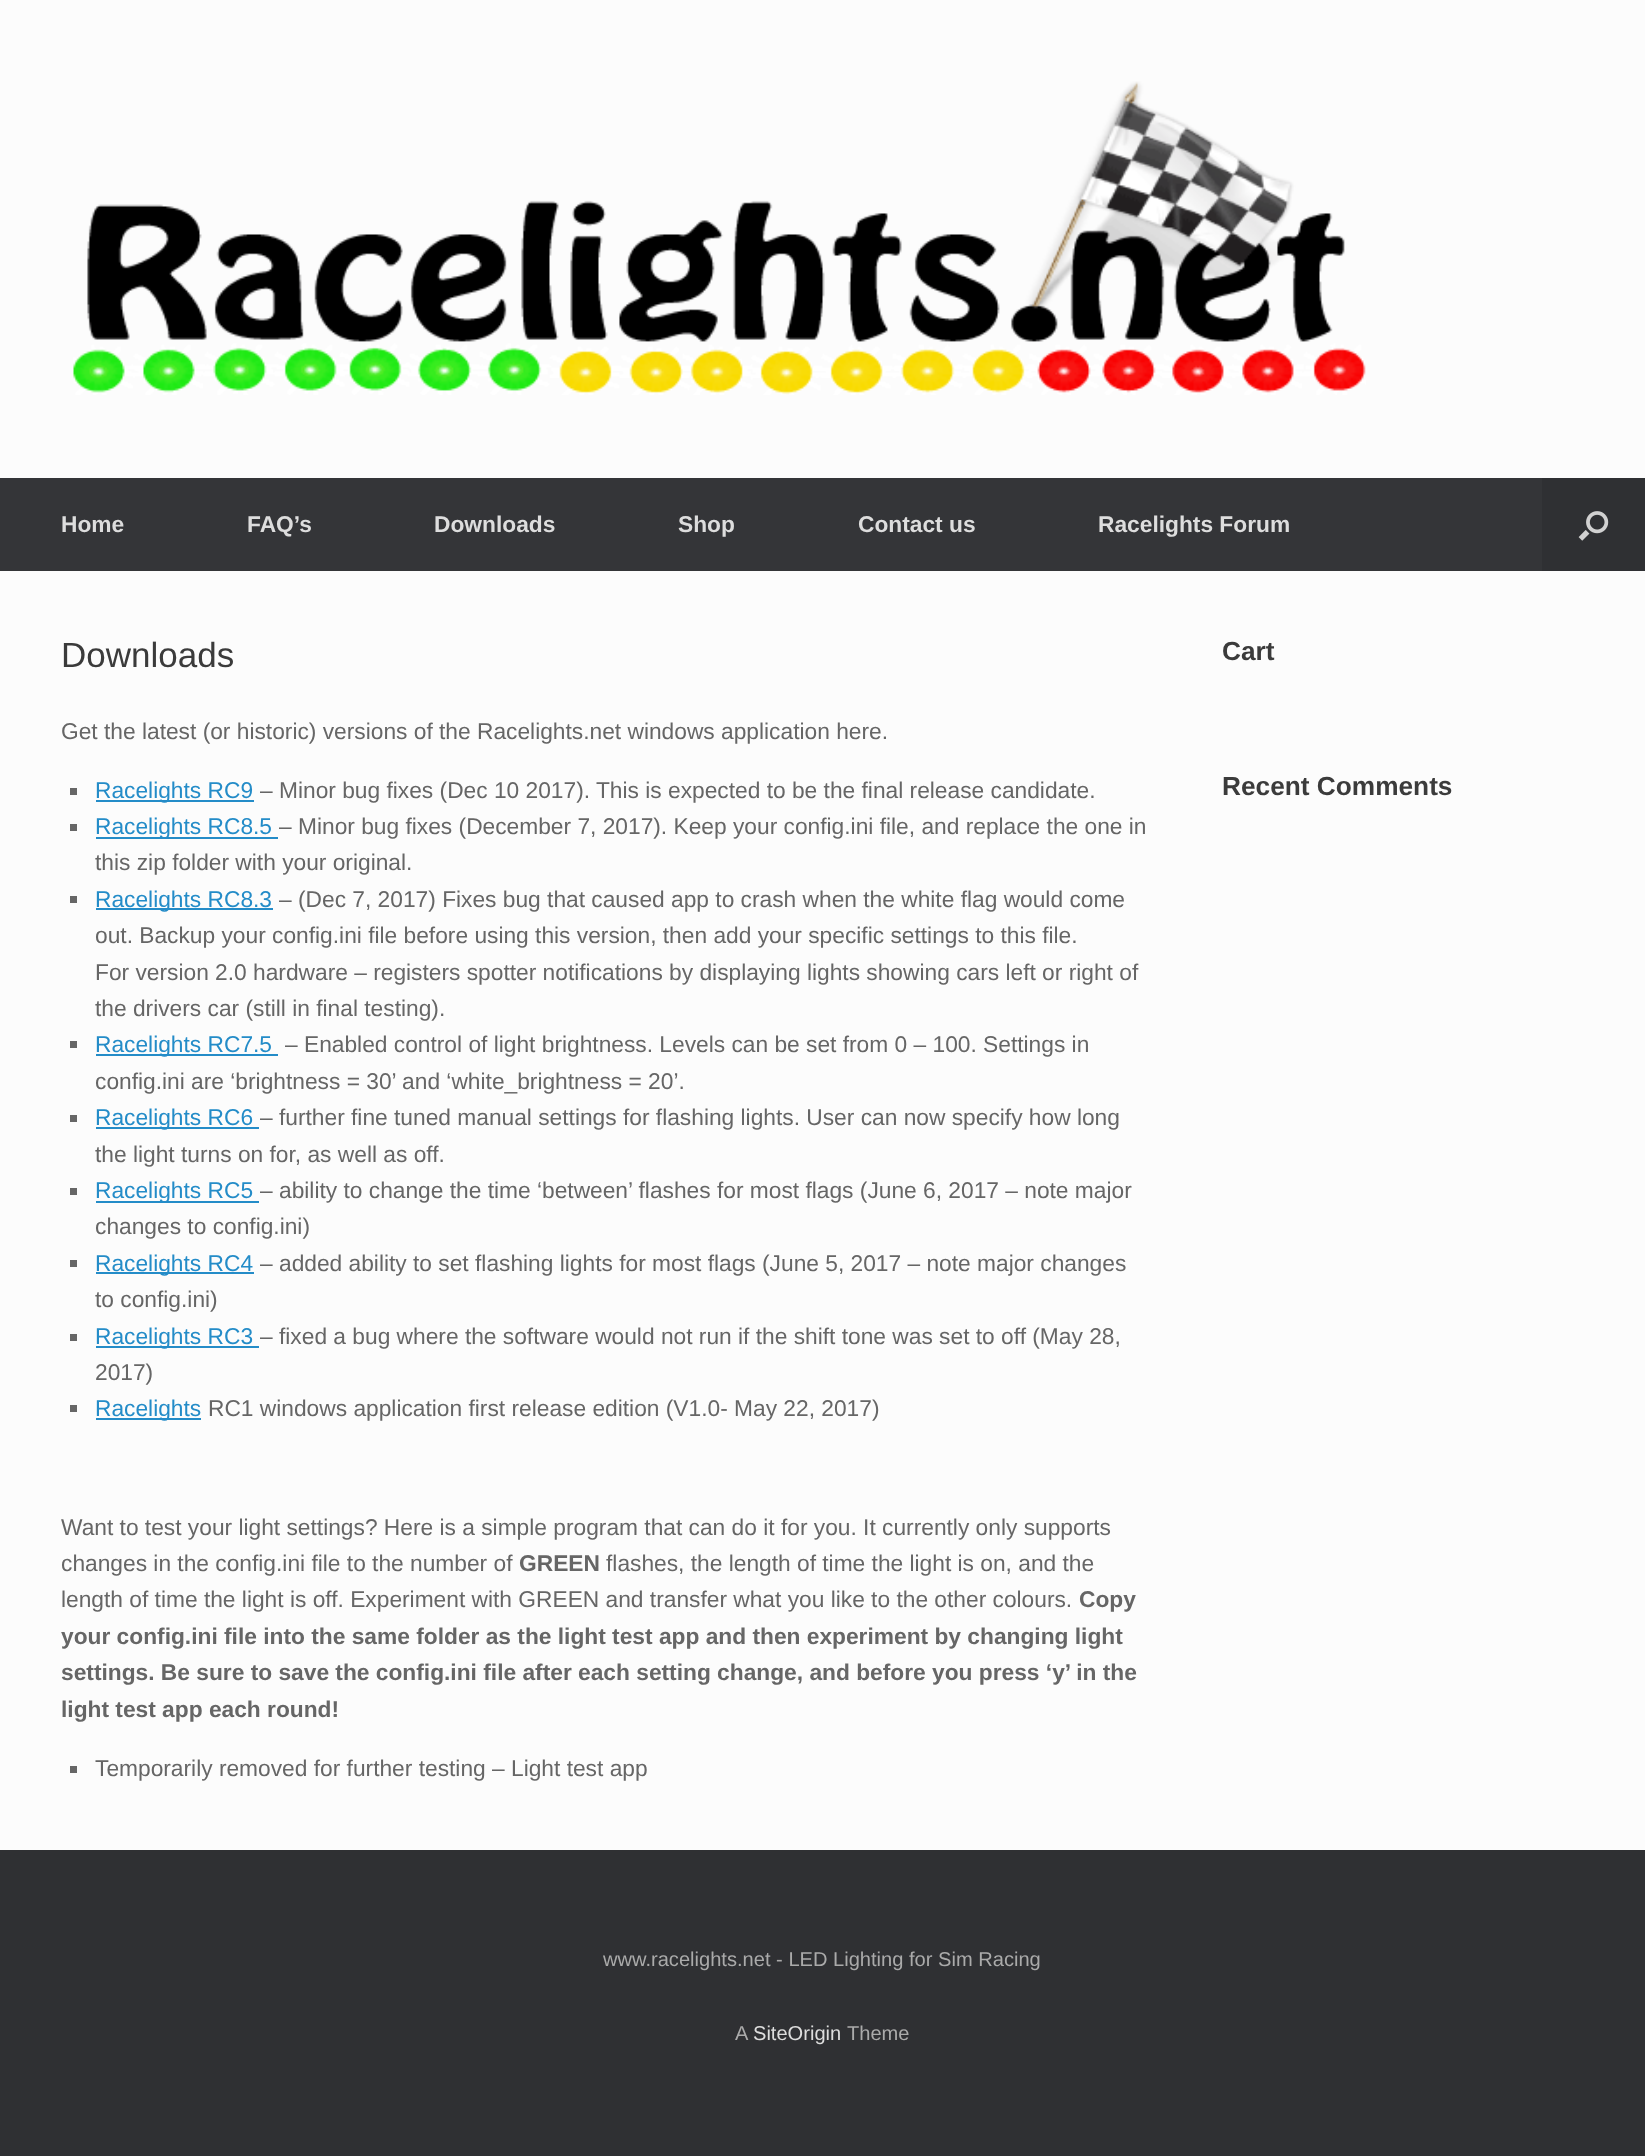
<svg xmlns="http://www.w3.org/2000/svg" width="1645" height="2156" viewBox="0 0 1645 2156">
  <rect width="100%" height="100%" fill="#2f3033"/>
  <rect x="0" y="0" width="1645" height="478" fill="#fcfcfc"/>
  <image x="73" y="81" width="1293" height="314" href="img1.png"/>
  <rect x="0" y="478" width="1542" height="93" fill="#343538"/>
  <text x="61" y="532" font-family="Liberation Sans" font-size="22.75" font-weight="bold" fill="#dddddd">Home</text>
  <text x="247" y="532" font-family="Liberation Sans" font-size="22.75" font-weight="bold" fill="#dddddd">FAQ’s</text>
  <text x="434" y="532" font-family="Liberation Sans" font-size="22.75" font-weight="bold" fill="#dddddd">Downloads</text>
  <text x="678" y="532" font-family="Liberation Sans" font-size="22.75" font-weight="bold" fill="#dddddd">Shop</text>
  <text x="858" y="532" font-family="Liberation Sans" font-size="22.75" font-weight="bold" fill="#dddddd">Contact us</text>
  <text x="1098" y="532" font-family="Liberation Sans" font-size="22.75" font-weight="bold" fill="#dddddd">Racelights Forum</text>
  <image x="1578" y="511" width="31" height="30" href="img2.png"/>
  <rect x="0" y="571" width="1645" height="1279" fill="#fcfcfc"/>
  <text x="61" y="667" font-family="Liberation Sans" font-size="35" fill="#3b3b3b">Downloads</text>
  <text x="61" y="739" font-family="Liberation Sans" font-size="22.75" fill="#666666">Get the latest (or historic) versions of the Racelights.net windows application here.</text>
  <rect x="70" y="788" width="7" height="7" fill="#666666"/>
  <rect x="96" y="800" width="158" height="2" fill="#248cc8"/>
  <text x="95" y="798" font-family="Liberation Sans" font-size="22.75" fill="#248cc8">Racelights RC9</text>
  <text x="260" y="798" font-family="Liberation Sans" font-size="22.75" fill="#666666">– Minor bug fixes (Dec 10 2017). This is expected to be the final release candidate.</text>
  <rect x="70" y="824" width="7" height="7" fill="#666666"/>
  <rect x="96" y="837" width="182" height="2" fill="#248cc8"/>
  <text x="95" y="834" font-family="Liberation Sans" font-size="22.75" fill="#248cc8">Racelights RC8.5</text>
  <text x="279" y="834" font-family="Liberation Sans" font-size="22.75" fill="#666666">– Minor bug fixes (December 7, 2017). Keep your config.ini file, and replace the one in</text>
  <text x="95" y="870" font-family="Liberation Sans" font-size="22.75" fill="#666666">this zip folder with your original.</text>
  <rect x="70" y="896" width="7" height="7" fill="#666666"/>
  <rect x="96" y="908" width="177" height="2" fill="#248cc8"/>
  <text x="95" y="907" font-family="Liberation Sans" font-size="22.75" fill="#248cc8">Racelights RC8.3</text>
  <text x="279" y="907" font-family="Liberation Sans" font-size="22.75" fill="#666666">– (Dec 7, 2017) Fixes bug that caused app to crash when the white flag would come</text>
  <text x="95" y="943" font-family="Liberation Sans" font-size="22.75" fill="#666666">out. Backup your config.ini file before using this version, then add your specific settings to this file.</text>
  <text x="95" y="980" font-family="Liberation Sans" font-size="22.75" fill="#666666">For version 2.0 hardware – registers spotter notifications by displaying lights showing cars left or right of</text>
  <text x="95" y="1016" font-family="Liberation Sans" font-size="22.75" fill="#666666">the drivers car (still in final testing).</text>
  <rect x="70" y="1041" width="7" height="7" fill="#666666"/>
  <rect x="96" y="1054" width="182" height="2" fill="#248cc8"/>
  <text x="95" y="1052" font-family="Liberation Sans" font-size="22.75" fill="#248cc8">Racelights RC7.5</text>
  <text x="285" y="1052" font-family="Liberation Sans" font-size="22.75" fill="#666666">– Enabled control of light brightness. Levels can be set from 0 – 100. Settings in</text>
  <text x="95" y="1089" font-family="Liberation Sans" font-size="22.75" fill="#666666">config.ini are ‘brightness = 30’ and ‘white_brightness = 20’.</text>
  <rect x="70" y="1115" width="7" height="7" fill="#666666"/>
  <rect x="96" y="1127" width="163" height="2" fill="#248cc8"/>
  <text x="95" y="1125" font-family="Liberation Sans" font-size="22.75" fill="#248cc8">Racelights RC6</text>
  <text x="260" y="1125" font-family="Liberation Sans" font-size="22.75" fill="#666666">– further fine tuned manual settings for flashing lights. User can now specify how long</text>
  <text x="95" y="1162" font-family="Liberation Sans" font-size="22.75" fill="#666666">the light turns on for, as well as off.</text>
  <rect x="70" y="1188" width="7" height="7" fill="#666666"/>
  <rect x="96" y="1201" width="163" height="2" fill="#248cc8"/>
  <text x="95" y="1198" font-family="Liberation Sans" font-size="22.75" fill="#248cc8">Racelights RC5</text>
  <text x="260" y="1198" font-family="Liberation Sans" font-size="22.75" fill="#666666">– ability to change the time ‘between’ flashes for most flags (June 6, 2017 – note major</text>
  <text x="95" y="1234" font-family="Liberation Sans" font-size="22.75" fill="#666666">changes to config.ini)</text>
  <rect x="70" y="1260" width="7" height="7" fill="#666666"/>
  <rect x="96" y="1272" width="158" height="2" fill="#248cc8"/>
  <text x="95" y="1271" font-family="Liberation Sans" font-size="22.75" fill="#248cc8">Racelights RC4</text>
  <text x="260" y="1271" font-family="Liberation Sans" font-size="22.75" fill="#666666">– added ability to set flashing lights for most flags (June 5, 2017 – note major changes</text>
  <text x="95" y="1307" font-family="Liberation Sans" font-size="22.75" fill="#666666">to config.ini)</text>
  <rect x="70" y="1334" width="7" height="7" fill="#666666"/>
  <rect x="96" y="1346" width="163" height="2" fill="#248cc8"/>
  <text x="95" y="1344" font-family="Liberation Sans" font-size="22.75" fill="#248cc8">Racelights RC3</text>
  <text x="260" y="1344" font-family="Liberation Sans" font-size="22.75" fill="#666666">– fixed a bug where the software would not run if the shift tone was set to off (May 28,</text>
  <text x="95" y="1380" font-family="Liberation Sans" font-size="22.75" fill="#666666">2017)</text>
  <rect x="70" y="1405" width="7" height="7" fill="#666666"/>
  <rect x="96" y="1418" width="105" height="2" fill="#248cc8"/>
  <text x="95" y="1416" font-family="Liberation Sans" font-size="22.75" fill="#248cc8">Racelights</text>
  <text x="208" y="1416" font-family="Liberation Sans" font-size="22.75" fill="#666666">RC1 windows application first release edition (V1.0- May 22, 2017)</text>
  <text x="61" y="1535" font-family="Liberation Sans" font-size="22.75" fill="#666666">Want to test your light settings? Here is a simple program that can do it for you. It currently only supports</text>
  <text x="61" y="1571" font-family="Liberation Sans" font-size="22.75" fill="#666666">changes in the config.ini file to the number of</text>
  <text x="519" y="1571" font-family="Liberation Sans" font-size="22.75" font-weight="bold" fill="#666666">GREEN</text>
  <text x="606" y="1571" font-family="Liberation Sans" font-size="22.75" fill="#666666">flashes, the length of time the light is on, and the</text>
  <text x="61" y="1607" font-family="Liberation Sans" font-size="22.75" fill="#666666">length of time the light is off. Experiment with GREEN and transfer what you like to the other colours.</text>
  <text x="1079" y="1607" font-family="Liberation Sans" font-size="22.75" font-weight="bold" fill="#666666">Copy</text>
  <text x="61" y="1644" font-family="Liberation Sans" font-size="22.75" font-weight="bold" fill="#666666">your config.ini file into the same folder as the light test app and then experiment by changing light</text>
  <text x="61" y="1680" font-family="Liberation Sans" font-size="22.75" font-weight="bold" fill="#666666">settings. Be sure to save the config.ini file after each setting change, and before you press ‘y’ in the</text>
  <text x="61" y="1717" font-family="Liberation Sans" font-size="22.75" font-weight="bold" fill="#666666">light test app each round!</text>
  <rect x="70" y="1766" width="7" height="7" fill="#666666"/>
  <text x="95" y="1776" font-family="Liberation Sans" font-size="22.75" fill="#666666">Temporarily removed for further testing – Light test app</text>
  <text x="1222" y="660" font-family="Liberation Sans" font-size="26.25" font-weight="bold" fill="#3b3b3b">Cart</text>
  <text x="1222" y="795" font-family="Liberation Sans" font-size="26.25" font-weight="bold" fill="#3b3b3b">Recent Comments</text>
  <text x="603" y="1966" font-family="Liberation Sans" font-size="20.1" fill="#aaaaaa">www.racelights.net - LED Lighting for Sim Racing</text>
  <text x="735" y="2040" font-family="Liberation Sans" font-size="20.1" fill="#aaaaaa">A</text>
  <text x="753" y="2040" font-family="Liberation Sans" font-size="20.1" fill="#dddddd">SiteOrigin</text>
  <text x="847" y="2040" font-family="Liberation Sans" font-size="20.1" fill="#aaaaaa">Theme</text>
</svg>
